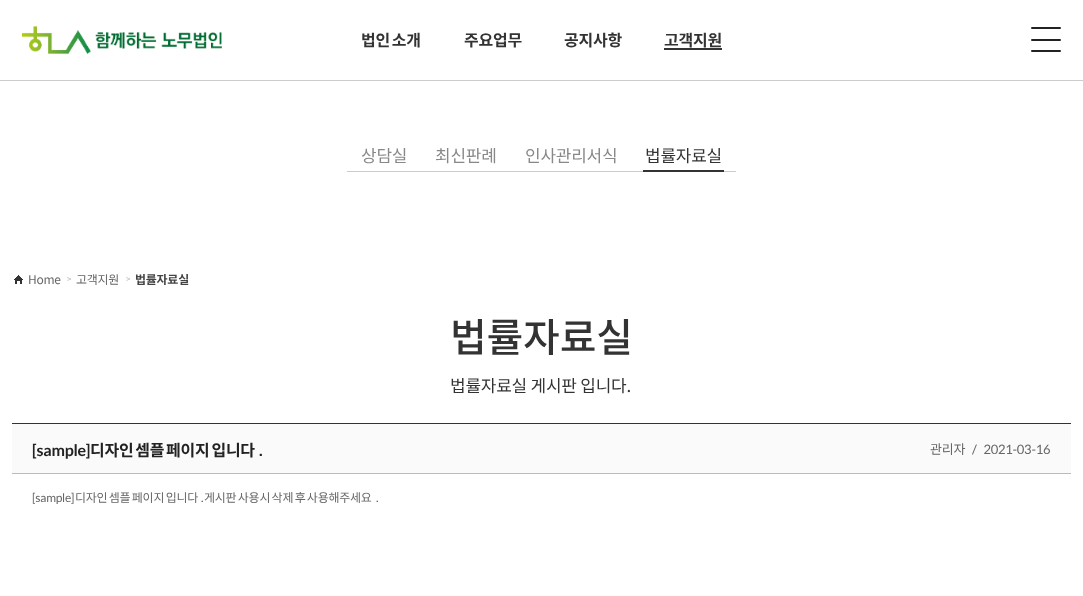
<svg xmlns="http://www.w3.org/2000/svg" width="1083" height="596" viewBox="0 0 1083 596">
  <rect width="100%" height="100%" fill="#ffffff"/>
  <rect x="0" y="80" width="1083" height="1" fill="#cccccc"/>
  <image x="22" y="26" width="200" height="28" href="img1.png"/>
  <text x="361" y="46" word-spacing="-1.5" font-family="Noto Sans KR" font-size="16" font-weight="bold" letter-spacing="-0.25" fill="#333333">법인 소개</text>
  <text x="464" y="46" font-family="Noto Sans KR" font-size="16" font-weight="bold" letter-spacing="-0.25" fill="#333333">주요업무</text>
  <text x="564" y="46" font-family="Noto Sans KR" font-size="16" font-weight="bold" letter-spacing="-0.25" fill="#333333">공지사항</text>
  <text x="664" y="46" font-family="Noto Sans KR" font-size="16" font-weight="bold" letter-spacing="-0.25" fill="#333333">고객지원</text>
  <rect x="664" y="48" width="58" height="2" fill="#333333"/>
  <rect x="1031" y="27" width="30" height="2" rx="1" fill="#222222"/>
  <rect x="1031" y="39" width="30" height="2" rx="1" fill="#222222"/>
  <rect x="1031" y="50" width="30" height="2" rx="1" fill="#222222"/>
  <rect x="347" y="171" width="389" height="1" fill="#cccccc"/>
  <text x="361" y="162" font-family="Noto Sans KR" font-size="17" letter-spacing="-0.25" fill="#888888">상담실</text>
  <text x="435" y="162" font-family="Noto Sans KR" font-size="17" letter-spacing="-0.25" fill="#888888">최신판례</text>
  <text x="525" y="162" font-family="Noto Sans KR" font-size="17" letter-spacing="-0.25" fill="#888888">인사관리서식</text>
  <text x="645" y="162" font-family="Noto Sans KR" font-size="17" letter-spacing="-0.25" fill="#333333">법률자료실</text>
  <rect x="643" y="170" width="81" height="2" fill="#333333"/>
  <rect x="14" y="275" width="9" height="9" fill="#333333"/>
  <image x="12" y="274" width="11" height="11" href="img2.png"/>
  <text x="28" y="284" font-family="Noto Sans KR" font-size="12" letter-spacing="-0.25" fill="#666666">Home</text>
  <text x="67" y="282" font-family="Noto Sans KR" font-size="8" letter-spacing="-0.25" fill="#aaaaaa">&gt;</text>
  <text x="76" y="284" font-family="Noto Sans KR" font-size="12" letter-spacing="-0.25" fill="#666666">고객지원</text>
  <text x="126" y="282" font-family="Noto Sans KR" font-size="8" letter-spacing="-0.25" fill="#aaaaaa">&gt;</text>
  <text x="135" y="284" font-family="Noto Sans KR" font-size="12" font-weight="bold" letter-spacing="-0.25" fill="#444444">법률자료실</text>
  <text x="450" y="352" font-family="Noto Sans KR" font-size="40" font-weight="500" letter-spacing="-0.25" fill="#333333">법률자료실</text>
  <text x="450" y="392" font-family="Noto Sans KR" font-size="17" letter-spacing="-0.25" fill="#333333">법률자료실 게시판 입니다.</text>
  <rect x="12" y="424" width="1059" height="49" fill="#fafafa"/>
  <rect x="12" y="423" width="1059" height="1" fill="#333333"/>
  <rect x="12" y="473" width="1059" height="1" fill="#bbbbbb"/>
  <text x="32" y="456" font-family="Lato" font-size="16" font-weight="bold" letter-spacing="-0.25" fill="#222222">[sample]</text>
  <text x="90" y="456" word-spacing="-1.5" font-family="Noto Sans KR" font-size="16" font-weight="bold" letter-spacing="-0.25" fill="#222222">디자인 셈플 페이지 입니다</text>
  <text x="259" y="456" font-family="Lato" font-size="16" font-weight="bold" letter-spacing="-0.25" fill="#222222">.</text>
  <text x="930" y="454" font-family="Noto Sans KR" font-size="13" letter-spacing="-0.25" fill="#666666">관리자</text>
  <text x="972" y="454" font-family="Lato" font-size="13" letter-spacing="-0.25" fill="#666666" xml:space="preserve">/   2021-03-16</text>
  <text x="32" y="502" font-family="Lato" font-size="12" letter-spacing="-0.25" fill="#666666">[sample]</text>
  <text x="75" y="502" word-spacing="-1" font-family="Noto Sans KR" font-size="12" letter-spacing="-0.25" fill="#666666">디자인 셈플 페이지 입니다</text>
  <text x="201" y="502" font-family="Lato" font-size="12" letter-spacing="-0.25" fill="#666666">.</text>
  <text x="204" y="502" word-spacing="-1" font-family="Noto Sans KR" font-size="12" letter-spacing="-0.25" fill="#666666">게시판 사용시 삭제 후 사용해주세요</text>
  <text x="376" y="502" font-family="Lato" font-size="12" letter-spacing="-0.25" fill="#666666">.</text>
</svg>
